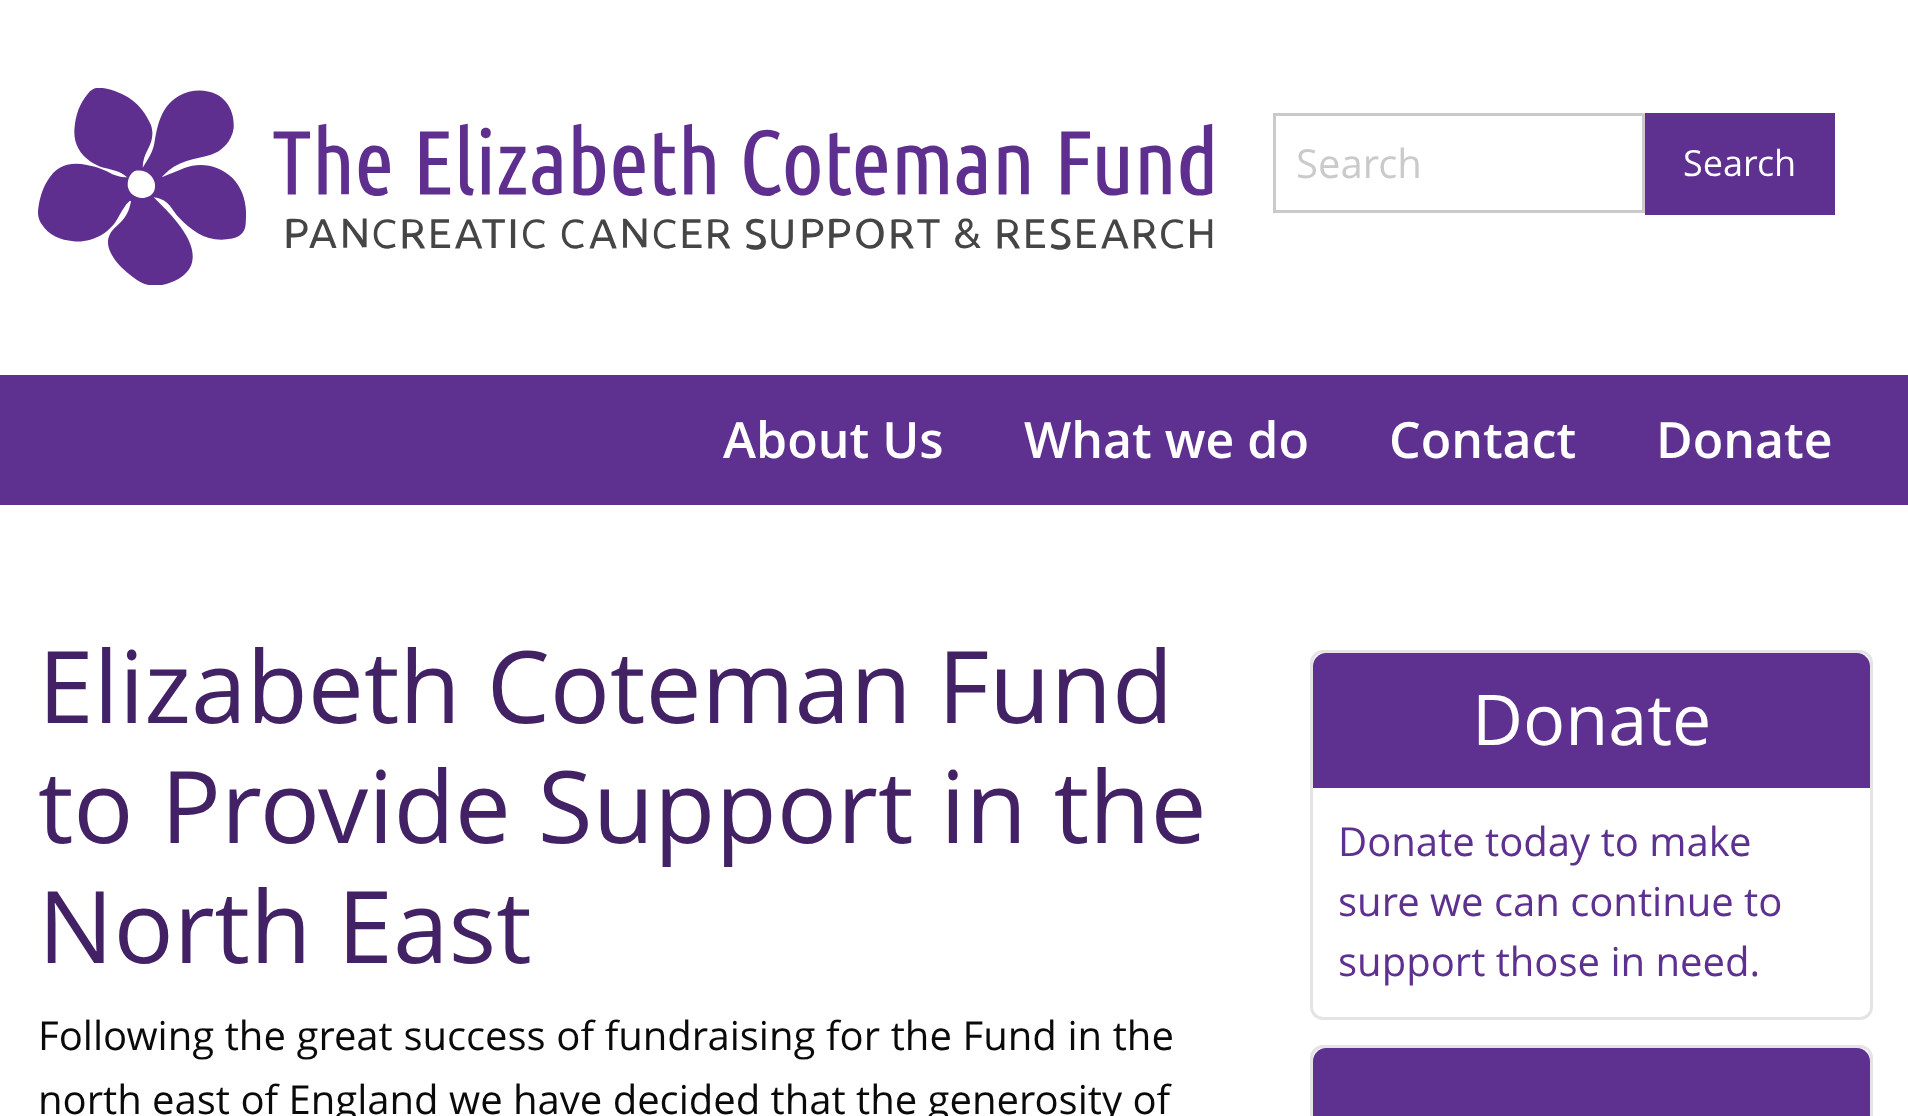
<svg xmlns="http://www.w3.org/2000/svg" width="1908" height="1116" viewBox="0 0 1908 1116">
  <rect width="100%" height="100%" fill="#ffffff"/>
  <image x="38" y="88" width="1175" height="197" href="img1.png"/>
  <rect x="1274.5" y="114.5" width="369" height="97" fill="none" stroke="#cacaca" stroke-width="3"/>
  <text x="1296" y="178" font-family="Open Sans" font-size="40" fill="#cacaca">Search</text>
  <rect x="1645" y="113" width="190" height="102" fill="#5e3090"/>
  <text x="1683" y="176" font-family="Open Sans" font-size="36" fill="#fefefe">Search</text>
  <rect x="0" y="375" width="1908" height="130" fill="#5e3090"/>
  <text x="723" y="458" font-family="Open Sans" font-size="50" font-weight="600" fill="#fefefe">About Us</text>
  <text x="1024" y="458" font-family="Open Sans" font-size="50" font-weight="600" fill="#fefefe">What we do</text>
  <text x="1389" y="458" font-family="Open Sans" font-size="50" font-weight="600" fill="#fefefe">Contact</text>
  <text x="1656" y="458" font-family="Open Sans" font-size="50" font-weight="600" fill="#fefefe">Donate</text>
  <text x="38" y="723" font-family="Open Sans" font-size="100" fill="#422265">Elizabeth Coteman Fund</text>
  <text x="38" y="843" word-spacing="1" font-family="Open Sans" font-size="100" fill="#422265">to Provide Support in the</text>
  <text x="38" y="963" font-family="Open Sans" font-size="100" fill="#422265">North East</text>
  <text x="38" y="1050" word-spacing="0.25" font-family="Open Sans" font-size="40" fill="#0a0a0a">Following the great success of fundraising for the Fund in the</text>
  <text x="38" y="1114" font-family="Open Sans" font-size="40" fill="#0a0a0a">north east of England we have decided that the generosity of</text>
  <rect x="1311.5" y="651.5" width="560" height="367" rx="11.5" fill="none" stroke="#e4e4e4" stroke-width="3"/>
  <path d="M1326 653H1857C1864 653 1870 659 1870 666V788H1313V666C1313 659 1319 653 1326 653Z" fill="#5e3090"/>
  <text x="1472" y="745" font-family="Open Sans" font-size="70" fill="#fefefe">Donate</text>
  <text x="1338" y="856" font-family="Open Sans" font-size="40" fill="#5e3090">Donate today to make</text>
  <text x="1338" y="916" font-family="Open Sans" font-size="40" fill="#5e3090">sure we can continue to</text>
  <text x="1338" y="976" font-family="Open Sans" font-size="40" fill="#5e3090">support those in need.</text>
  <rect x="1311.5" y="1046.5" width="560" height="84" rx="11.5" fill="none" stroke="#e4e4e4" stroke-width="3"/>
  <path d="M1326 1048H1857C1864 1048 1870 1054 1870 1061V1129H1313V1061C1313 1054 1319 1048 1326 1048Z" fill="#5e3090"/>
</svg>
